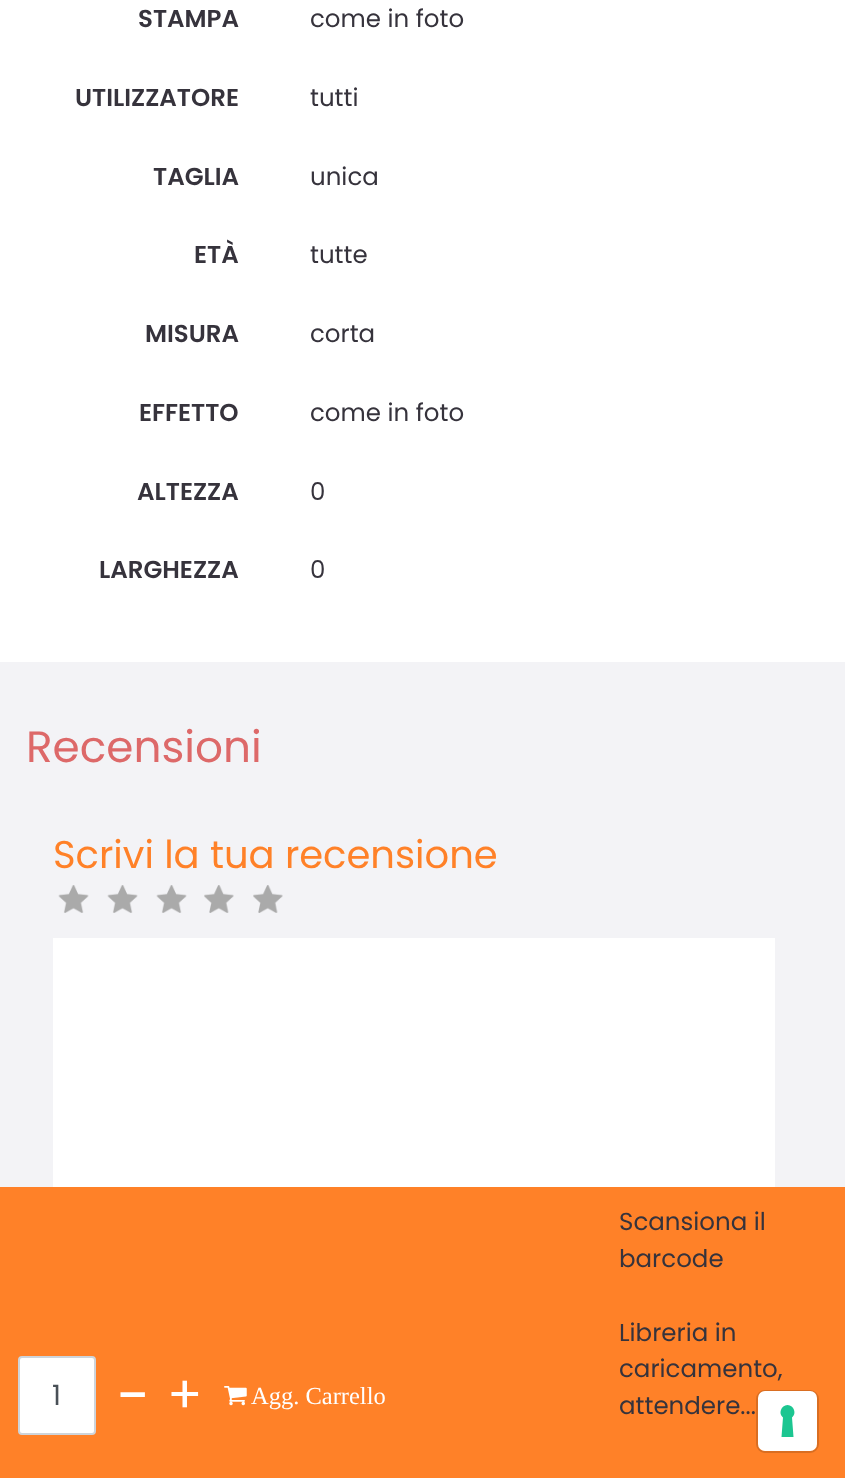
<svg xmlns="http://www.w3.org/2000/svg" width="845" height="1478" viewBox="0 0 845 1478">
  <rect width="100%" height="100%" fill="#ffffff"/>
  <text x="138" y="27" font-family="Poppins" font-size="24.5" font-weight="600" fill="#36333c">STAMPA</text>
  <text x="310" y="27" font-family="Poppins" font-size="24.5" fill="#36333c">come in foto</text>
  <text x="75" y="106" font-family="Poppins" font-size="24.5" font-weight="600" fill="#36333c">UTILIZZATORE</text>
  <text x="310" y="106" font-family="Poppins" font-size="24.5" fill="#36333c">tutti</text>
  <text x="153" y="185" font-family="Poppins" font-size="24.5" font-weight="600" fill="#36333c">TAGLIA</text>
  <text x="310" y="185" font-family="Poppins" font-size="24.5" fill="#36333c">unica</text>
  <text x="194" y="263" font-family="Poppins" font-size="24.5" font-weight="600" fill="#36333c">ETÀ</text>
  <text x="310" y="263" font-family="Poppins" font-size="24.5" fill="#36333c">tutte</text>
  <text x="145" y="342" font-family="Poppins" font-size="24.5" font-weight="600" fill="#36333c">MISURA</text>
  <text x="310" y="342" font-family="Poppins" font-size="24.5" fill="#36333c">corta</text>
  <text x="139" y="421" font-family="Poppins" font-size="24.5" font-weight="600" fill="#36333c">EFFETTO</text>
  <text x="310" y="421" font-family="Poppins" font-size="24.5" fill="#36333c">come in foto</text>
  <text x="137" y="500" font-family="Poppins" font-size="24.5" font-weight="600" fill="#36333c">ALTEZZA</text>
  <text x="310" y="500" font-family="Poppins" font-size="24.5" fill="#36333c">0</text>
  <text x="99" y="578" font-family="Poppins" font-size="24.5" font-weight="600" fill="#36333c">LARGHEZZA</text>
  <text x="310" y="578" font-family="Poppins" font-size="24.5" fill="#36333c">0</text>
  <rect x="0" y="662" width="845" height="525" fill="#f3f3f6"/>
  <text x="26" y="762" font-family="Poppins" font-size="43.75" fill="#dd6969">Recensioni</text>
  <text x="53" y="868" font-family="Poppins" font-size="38.5" fill="#ff8128">Scrivi la tua recensione</text>
  <image x="58" y="885" width="31" height="28" href="img1.png"/>
  <image x="107" y="885" width="31" height="28" href="img2.png"/>
  <image x="156" y="885" width="31" height="28" href="img2.png"/>
  <image x="204" y="885" width="30" height="28" href="img3.png"/>
  <image x="253" y="885" width="30" height="28" href="img4.png"/>
  <rect x="53" y="938" width="722" height="249" fill="#ffffff"/>
  <rect x="0" y="1187" width="845" height="291" fill="#ff8128"/>
  <rect x="19" y="1357" width="76" height="77" rx="3" fill="#ffffff" stroke="#ced4da" stroke-width="2"/>
  <text x="52" y="1405" font-family="Poppins" font-size="28" fill="#495057">1</text>
  <text x="117" y="1417" font-family="Poppins" font-size="61" fill="#ffffff">-</text>
  <text x="167" y="1413" font-family="Poppins" font-size="52" fill="#ffffff">+</text>
  <image x="224" y="1386" width="23" height="20" href="img5.png"/>
  <text x="251" y="1404" font-family="Liberation Serif" font-size="24.5" fill="#ffffff">Agg. Carrello</text>
  <text x="619" y="1230" font-family="Poppins" font-size="24.5" fill="#36333c">Scansiona il</text>
  <text x="619" y="1267" font-family="Poppins" font-size="24.5" fill="#36333c">barcode</text>
  <text x="619" y="1341" font-family="Poppins" font-size="24.5" fill="#36333c">Libreria in</text>
  <text x="619" y="1377" font-family="Poppins" font-size="24.5" fill="#36333c">caricamento,</text>
  <text x="619" y="1414" font-family="Poppins" font-size="24.5" fill="#36333c">attendere...</text>
  <rect x="757" y="1391" width="61" height="61" rx="8" fill="none" stroke="#d96e22" stroke-width="2"/>
  <rect x="758" y="1391" width="59" height="60" rx="7" fill="#ffffff"/>
  <path d="M787.5 1405C794 1405.5 797 1413.5 792 1417.5L793.5 1437H781.5L783 1417.5C778 1413.5 781 1405.5 787.5 1405Z" fill="#1cc691" fill-rule="evenodd"/>
</svg>
